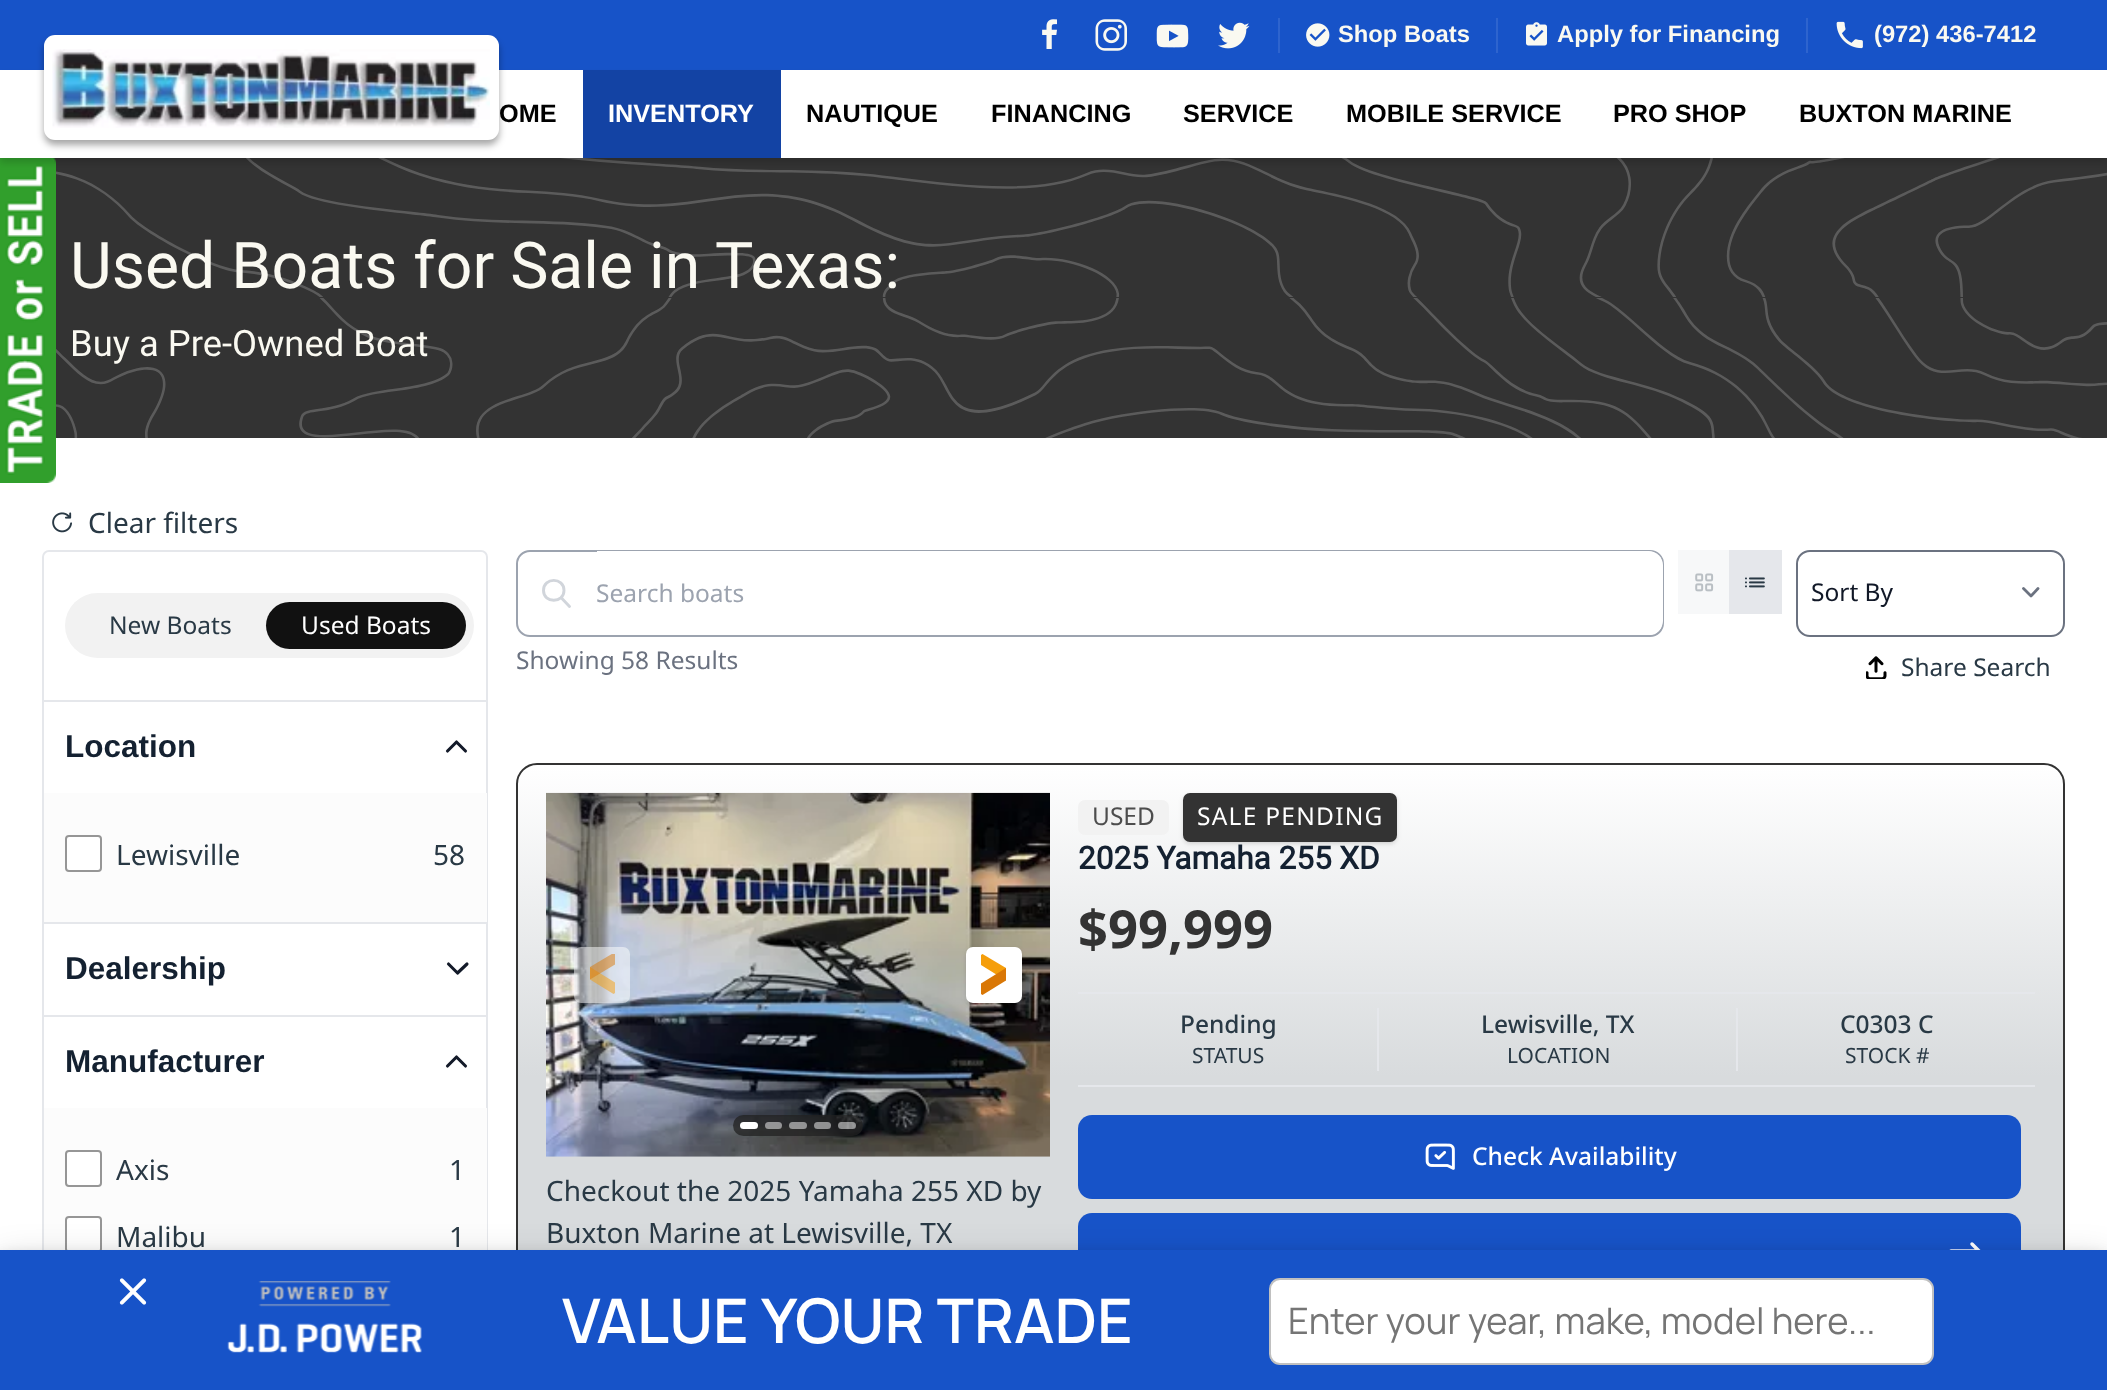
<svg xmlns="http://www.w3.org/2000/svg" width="2107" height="1390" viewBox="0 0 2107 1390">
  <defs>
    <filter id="blur1" x="-50%" y="-200%" width="200%" height="500%"><feGaussianBlur stdDeviation="3.5"/></filter>
    <clipPath id="clip1"><rect x="518" y="551" width="1145" height="84" rx="12"/></clipPath>
    <clipPath id="clip2"><rect x="516" y="763" width="1549" height="627" rx="21"/></clipPath>
    <linearGradient id="g1" gradientUnits="userSpaceOnUse" x1="1291" y1="765" x2="1291" y2="1388"><stop offset="0" stop-color="#ffffff"/><stop offset="0.5" stop-color="#d8dbdd"/><stop offset="1" stop-color="#d8dbdd"/></linearGradient>
    <filter id="blur2" x="-50%" y="-200%" width="200%" height="500%"><feGaussianBlur stdDeviation="2"/></filter>
    <filter id="blur3" x="-50%" y="-200%" width="200%" height="500%"><feGaussianBlur stdDeviation="2.5"/></filter>
    <clipPath id="clip3"><rect x="581" y="954" width="42" height="42"/></clipPath>
    <filter id="blur4" x="-50%" y="-200%" width="200%" height="500%"><feGaussianBlur stdDeviation="17.5"/></filter>
    <filter id="blur5" x="-50%" y="-200%" width="200%" height="500%"><feGaussianBlur stdDeviation="7"/></filter>
  </defs>
  <rect width="100%" height="100%" fill="#ffffff"/>
  <rect x="52" y="158" width="2055" height="280" fill="#333333"/>
  <image x="0" y="158" width="56" height="325" href="img1.png"/>
  <rect x="0" y="0" width="2107" height="70" fill="#1753c8"/>
  <image x="1042" y="19" width="15" height="30" href="img2.png"/>
  <image x="1095" y="19" width="32" height="32" href="img3.png"/>
  <image x="1156" y="24" width="33" height="24" href="img4.png"/>
  <image x="1218" y="22" width="32" height="27" href="img5.png"/>
  <rect x="1278" y="18" width="2" height="35" fill="#2e64ce"/>
  <image x="1306" y="23" width="24" height="24" href="img6.png"/>
  <text x="1338" y="42" font-family="Liberation Sans" font-size="23.75" font-weight="bold" fill="#faf9f1">Shop Boats</text>
  <rect x="1496" y="18" width="2" height="35" fill="#2e64ce"/>
  <image x="1526" y="22" width="21" height="24" href="img7.png"/>
  <text x="1557" y="42" font-family="Liberation Sans" font-size="23.75" font-weight="bold" fill="#faf9f1">Apply for Financing</text>
  <rect x="1806" y="18" width="2" height="35" fill="#2e64ce"/>
  <image x="1836" y="21" width="27" height="28" href="img8.png"/>
  <text x="1874" y="42" font-family="Liberation Sans" font-size="23.75" font-weight="bold" fill="#faf9f1">(972) 436-7412</text>
  <image x="56" y="158" width="2051" height="280" href="img10.png"/>
  <rect x="0" y="75" width="2107" height="88" fill="#000000" fill-opacity="0.15" filter="url(#blur1)"/>
  <rect x="0" y="70" width="2107" height="88" fill="#ffffff"/>
  <rect x="44" y="40" width="455" height="105" rx="11" fill="#000000" fill-opacity="0.35" filter="url(#blur1)"/>
  <rect x="44" y="35" width="455" height="105" rx="11" fill="#ffffff"/>
  <image x="52" y="49" width="438" height="79" href="img9.png"/>
  <text x="499" y="122" font-family="Liberation Sans" font-size="25.25" font-weight="bold" fill="#000000">OME</text>
  <rect x="583" y="70" width="198" height="88" fill="#1343a4"/>
  <text x="608" y="122" font-family="Liberation Sans" font-size="25.25" font-weight="bold" fill="#ffffff">INVENTORY</text>
  <text x="806" y="122" font-family="Liberation Sans" font-size="25.25" font-weight="bold" fill="#000000">NAUTIQUE</text>
  <text x="991" y="122" font-family="Liberation Sans" font-size="25.25" font-weight="bold" fill="#000000">FINANCING</text>
  <text x="1183" y="122" font-family="Liberation Sans" font-size="25.25" font-weight="bold" fill="#000000">SERVICE</text>
  <text x="1346" y="122" font-family="Liberation Sans" font-size="25.25" font-weight="bold" fill="#000000">MOBILE SERVICE</text>
  <text x="1613" y="122" font-family="Liberation Sans" font-size="25.25" font-weight="bold" fill="#000000">PRO SHOP</text>
  <text x="1799" y="122" font-family="Liberation Sans" font-size="25.25" font-weight="bold" fill="#000000">BUXTON MARINE</text>
  <text x="70" y="288" font-family="Roboto" font-size="64.4" fill="#faf9f1">Used Boats for Sale in Texas:</text>
  <text x="70" y="356" font-family="Roboto" font-size="36.4" fill="#faf9f1">Buy a Pre-Owned Boat</text>
  <rect x="43" y="551" width="444" height="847" rx="6" fill="none" stroke="#e5e7eb" stroke-width="2"/>
  <image x="52" y="512" width="20" height="21" href="img11.png"/>
  <text x="88" y="533" font-family="Noto Sans" font-size="28" fill="#293945">Clear filters</text>
  <rect x="65" y="593" width="409" height="65" rx="32.5" fill="#f2f2f2"/>
  <text x="109" y="634" font-family="Noto Sans" font-size="24.5" fill="#293945">New Boats</text>
  <rect x="266" y="602" width="200" height="47" rx="23.5" fill="#111111"/>
  <text x="301" y="634" font-family="Noto Sans" font-size="24.5" fill="#ffffff">Used Boats</text>
  <rect x="44" y="700" width="443" height="2" fill="#e5e7eb"/>
  <text x="65" y="757" font-family="Liberation Sans" font-size="31.5" font-weight="bold" fill="#142131">Location</text>
  <path d="M465.5 751L456.5 742L447.5 751" fill="none" stroke="#131a29" stroke-width="3.1" stroke-linecap="round" stroke-linejoin="round"/>
  <rect x="44" y="793" width="443" height="129" fill="#fcfcfc"/>
  <rect x="66" y="836" width="35" height="35" rx="3" fill="#ffffff" stroke="#969696" stroke-width="2"/>
  <text x="116" y="865" font-family="Noto Sans" font-size="28" fill="#293945">Lewisville</text>
  <text x="433" y="865" font-family="Noto Sans" font-size="28" fill="#293945">58</text>
  <rect x="44" y="922" width="443" height="2" fill="#e5e7eb"/>
  <text x="65" y="979" font-family="Liberation Sans" font-size="31.5" font-weight="bold" fill="#142131">Dealership</text>
  <path d="M448.5 964L457.5 973L467 964" fill="none" stroke="#131a29" stroke-width="3.1" stroke-linecap="round" stroke-linejoin="round"/>
  <rect x="44" y="1015" width="443" height="2" fill="#e5e7eb"/>
  <text x="65" y="1072" font-family="Liberation Sans" font-size="31.5" font-weight="bold" fill="#142131">Manufacturer</text>
  <path d="M465.5 1066L456.5 1057L447.5 1066" fill="none" stroke="#131a29" stroke-width="3.1" stroke-linecap="round" stroke-linejoin="round"/>
  <rect x="44" y="1108" width="443" height="142" fill="#fcfcfc"/>
  <rect x="66" y="1151" width="35" height="35" rx="3" fill="#ffffff" stroke="#969696" stroke-width="2"/>
  <text x="116" y="1180" font-family="Noto Sans" font-size="28" fill="#293945">Axis</text>
  <text x="449" y="1180" font-family="Noto Sans" font-size="28" fill="#293945">1</text>
  <rect x="66" y="1217" width="35" height="35" rx="3" fill="#ffffff" stroke="#969696" stroke-width="2"/>
  <text x="116" y="1247" font-family="Noto Sans" font-size="28" fill="#293945">Malibu</text>
  <text x="449" y="1247" font-family="Noto Sans" font-size="28" fill="#293945">1</text>
  <rect x="517" y="551" width="1146" height="85" rx="13" fill="none" stroke="#9ca3af" stroke-width="2"/>
  <path d="M569.5 606.5L561 597.5M564 590.5C564 603.5 543.5 603.5 543.5 590.5C543.5 577 564 577 564 590.5Z" fill="none" stroke="#d1d5db" stroke-width="2.9" stroke-linecap="round" stroke-linejoin="round"/>
  <g clip-path="url(#clip1)">
    <path d="M597 551H1649C1656.5 551 1663 557.5 1663 565V621C1663 628.5 1656.5 635 1649 635H597Z" fill="#ffffff"/>
  </g>
  <text x="596" y="602" font-family="Noto Sans" font-size="24.5" fill="#9ca3af">Search boats</text>
  <rect x="1678" y="550" width="51" height="64" fill="#f7f8f9"/>
  <image x="1695" y="573" width="19" height="19" href="img12.png"/>
  <rect x="1729" y="550" width="53" height="64" fill="#e5e7eb"/>
  <image x="1745" y="577" width="20" height="11" href="img13.png"/>
  <path d="M2023.5 588.5L2031 596L2038 588.5" fill="none" stroke="#6b7280" stroke-width="2.8" stroke-linecap="round" stroke-linejoin="round"/>
  <rect x="1797" y="551" width="267" height="85" rx="13" fill="none" stroke="#6b7280" stroke-width="2"/>
  <text x="1811" y="601" font-family="Noto Sans" font-size="24.5" fill="#111827">Sort By</text>
  <text x="516" y="669" font-family="Noto Sans" font-size="24.5" fill="#6b7280">Showing 58 Results</text>
  <image x="1866" y="656" width="21" height="23" href="img14.png"/>
  <text x="1901" y="676" font-family="Noto Sans" font-size="24.5" fill="#293945">Share Search</text>
  <g clip-path="url(#clip2)">
    <rect x="516" y="765" width="1549" height="485" fill="url(#g1)"/>
  </g>
  <rect x="517" y="764" width="1547" height="625" rx="20" fill="none" stroke="#333333" stroke-width="2"/>
  <rect x="1078" y="800" width="91" height="35" rx="7" fill="#f2f2f2"/>
  <text x="1092" y="825" font-family="Noto Sans" font-size="24.5" fill="#4d4d4d">USED</text>
  <rect x="1185" y="796" width="210" height="46" rx="5" fill="#000000" fill-opacity="0.1" filter="url(#blur2)"/>
  <rect x="1183" y="795" width="214" height="49" rx="7" fill="#000000" fill-opacity="0.1" filter="url(#blur3)"/>
  <rect x="1183" y="793" width="214" height="49" rx="7" fill="#333333"/>
  <text x="1197" y="825" font-family="Noto Sans" font-size="24.5" letter-spacing="1.25" fill="#ffffff">SALE PENDING</text>
  <text x="1078" y="869" font-family="Roboto" font-size="31.5" font-weight="bold" fill="#142131">2025 Yamaha 255 XD</text>
  <text x="1078" y="948" font-family="Noto Sans" font-size="52.5" font-weight="bold" fill="#333333">$99,999</text>
  <rect x="1078" y="992" width="957" height="2" fill="#e5e7eb"/>
  <text x="1180" y="1033" font-family="Noto Sans" font-size="24.5" font-weight="500" fill="#293945">Pending</text>
  <text x="1192" y="1063" font-family="Noto Sans" font-size="21" fill="#293945">STATUS</text>
  <rect x="1377" y="1008" width="2" height="63" fill="#e5e7eb"/>
  <text x="1481" y="1033" font-family="Noto Sans" font-size="24.5" font-weight="500" fill="#293945">Lewisville, TX</text>
  <text x="1507" y="1063" font-family="Noto Sans" font-size="21" fill="#293945">LOCATION</text>
  <rect x="1736" y="1008" width="2" height="63" fill="#e5e7eb"/>
  <text x="1840" y="1033" font-family="Noto Sans" font-size="24.5" font-weight="500" fill="#293945">C0303 C</text>
  <text x="1845" y="1063" font-family="Noto Sans" font-size="21" fill="#293945">STOCK #</text>
  <rect x="1078" y="1085" width="957" height="2" fill="#e5e7eb"/>
  <rect x="1078" y="1115" width="943" height="84" rx="14" fill="#1753c8"/>
  <image x="1425" y="1143" width="30" height="27" href="img15.png"/>
  <text x="1472" y="1165" font-family="Noto Sans" font-size="24.5" font-weight="500" fill="#ffffff">Check Availability</text>
  <rect x="1078" y="1213" width="943" height="77" rx="14" fill="#1753c8"/>
  <path d="M1951 1251H1979M1979 1251L1972 1244M1979 1251L1972 1258" fill="none" stroke="#ffffff" stroke-width="3.5" stroke-linecap="round" stroke-linejoin="round"/>
  <image x="546" y="792" width="504" height="365" href="img16.png"/>
  <rect x="574" y="947" width="56" height="56" rx="7" fill="#ffffff" fill-opacity="0.5"/>
  <path d="M613.5 994L590 979.5V967L615 982.5V993Z" fill="#f59e0b" fill-opacity="0.5"/>
  <g clip-path="url(#clip3)">
    <path d="M613.5 953L590 967V979.5L615 964.5V954Z" fill="#d97706" fill-opacity="0.5"/>
  </g>
  <rect x="968" y="950" width="52" height="53" rx="5" fill="#000000" fill-opacity="0.1" filter="url(#blur2)"/>
  <rect x="966" y="949" width="56" height="56" rx="7" fill="#000000" fill-opacity="0.1" filter="url(#blur3)"/>
  <rect x="966" y="947" width="56" height="56" rx="7" fill="#ffffff"/>
  <path d="M982.5 954L1006 968V980.5L981 965V955Z" fill="#f59e0b"/>
  <path d="M982.5 995L1006 980.5V968L981 983.5V994Z" fill="#d97706"/>
  <rect x="733" y="1115" width="130" height="21" rx="10.5" fill="#222222" fill-opacity="0.75"/>
  <rect x="740" y="1122" width="18" height="7" rx="3.5" fill="#ffffff"/>
  <rect x="765" y="1122" width="17" height="7" rx="3.5" fill="#ffffff" fill-opacity="0.5"/>
  <rect x="789" y="1122" width="18" height="7" rx="3.5" fill="#ffffff" fill-opacity="0.5"/>
  <rect x="814" y="1122" width="17" height="7" rx="3.5" fill="#ffffff" fill-opacity="0.5"/>
  <rect x="838" y="1122" width="18" height="7" rx="3.5" fill="#ffffff" fill-opacity="0.5"/>
  <text x="546" y="1201" font-family="Noto Sans" font-size="28" fill="#293945">Checkout the 2025 Yamaha 255 XD by</text>
  <text x="546" y="1243" font-family="Noto Sans" font-size="28" fill="#293945">Buxton Marine at Lewisville, TX</text>
  <rect x="0" y="1260" width="2107" height="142" fill="#000000" fill-opacity="0.19" filter="url(#blur4)"/>
  <rect x="0" y="1257" width="2107" height="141" fill="#000000" fill-opacity="0.2" filter="url(#blur5)"/>
  <rect x="0" y="1250" width="2107" height="140" fill="#1753c8"/>
  <image x="119" y="1278" width="28" height="27" href="img17.png"/>
  <image x="227" y="1281" width="195" height="72" href="img18.png"/>
  <text x="562" y="1343" font-family="Manrope" font-size="61.5" font-weight="600" fill="#ffffff">VALUE YOUR TRADE</text>
  <rect x="1270" y="1279" width="663" height="85" rx="10" fill="#ffffff" stroke="#c0c0c0" stroke-width="2"/>
  <text x="1288" y="1334" font-family="Manrope" font-size="36.4" fill="#757575">Enter your year, make, model here...</text>
</svg>
